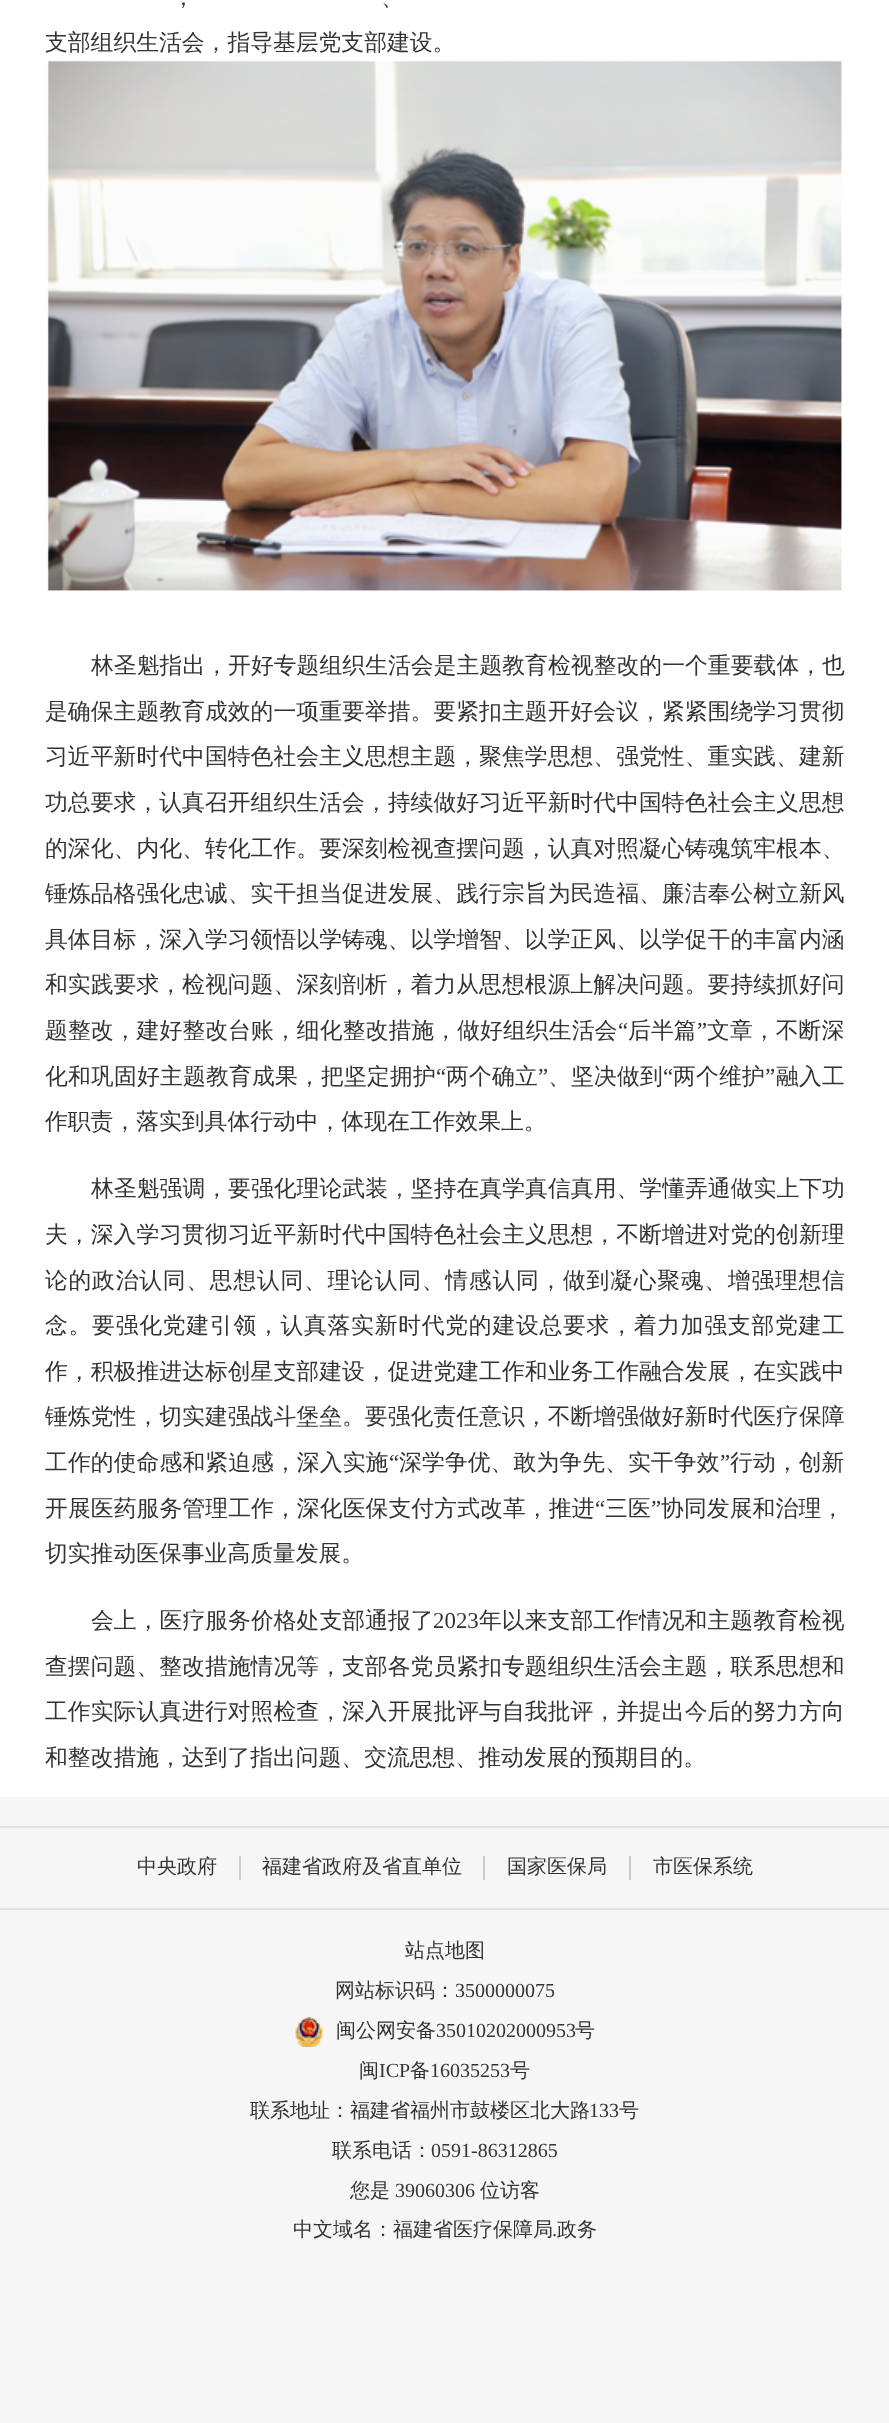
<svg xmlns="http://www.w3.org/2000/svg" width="889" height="2423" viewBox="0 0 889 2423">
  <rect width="100%" height="100%" fill="#f7f6f6"/>
  <rect x="0" y="0" width="889" height="1797" fill="#ffffff"/>
  <text x="172" y="5" font-family="WenQuanYi Zen Hei" font-size="22.8" font-weight="500" fill="#333333">，</text>
  <text x="381" y="5" font-family="WenQuanYi Zen Hei" font-size="22.8" font-weight="500" fill="#333333">、</text>
  <text x="45" y="50" font-family="WenQuanYi Zen Hei" font-size="22.8" font-weight="500" fill="#333333">支部组织生活会，指导基层党支部建设。</text>
  <image x="47" y="60" width="795" height="531" href="img1.png"/>
  <text x="91" y="673" font-family="WenQuanYi Zen Hei" font-size="22.8" font-weight="500" letter-spacing="0.05" fill="#333333">林圣魁指出，开好专题组织生活会是主题教育检视整改的一个重要载体，也</text>
  <text x="45" y="719" font-family="WenQuanYi Zen Hei" font-size="22.8" font-weight="500" letter-spacing="0.05" fill="#333333">是确保主题教育成效的一项重要举措。要紧扣主题开好会议，紧紧围绕学习贯彻</text>
  <text x="45" y="764" font-family="WenQuanYi Zen Hei" font-size="22.8" font-weight="500" letter-spacing="0.05" fill="#333333">习近平新时代中国特色社会主义思想主题，聚焦学思想、强党性、重实践、建新</text>
  <text x="45" y="810" font-family="WenQuanYi Zen Hei" font-size="22.8" font-weight="500" letter-spacing="0.05" fill="#333333">功总要求，认真召开组织生活会，持续做好习近平新时代中国特色社会主义思想</text>
  <text x="45" y="856" font-family="WenQuanYi Zen Hei" font-size="22.8" font-weight="500" letter-spacing="0.05" fill="#333333">的深化、内化、转化工作。要深刻检视查摆问题，认真对照凝心铸魂筑牢根本、</text>
  <text x="45" y="901" font-family="WenQuanYi Zen Hei" font-size="22.8" font-weight="500" letter-spacing="0.05" fill="#333333">锤炼品格强化忠诚、实干担当促进发展、践行宗旨为民造福、廉洁奉公树立新风</text>
  <text x="45" y="947" font-family="WenQuanYi Zen Hei" font-size="22.8" font-weight="500" letter-spacing="0.05" fill="#333333">具体目标，深入学习领悟以学铸魂、以学增智、以学正风、以学促干的丰富内涵</text>
  <text x="45" y="992" font-family="WenQuanYi Zen Hei" font-size="22.8" font-weight="500" letter-spacing="0.05" fill="#333333">和实践要求，检视问题、深刻剖析，着力从思想根源上解决问题。要持续抓好问</text>
  <text x="45" y="1038" font-family="WenQuanYi Zen Hei" font-size="22.8" font-weight="500" letter-spacing="0.1" fill="#333333">题整改，建好整改台账，细化整改措施，做好组织生活会</text>
  <text x="618" y="1038" font-family="Liberation Serif" font-size="22.8" letter-spacing="0.1" fill="#333333">“</text>
  <text x="628" y="1038" font-family="WenQuanYi Zen Hei" font-size="22.8" font-weight="500" letter-spacing="0.1" fill="#333333">后半篇</text>
  <text x="697" y="1038" font-family="Liberation Serif" font-size="22.8" letter-spacing="0.1" fill="#333333">”</text>
  <text x="707" y="1038" font-family="WenQuanYi Zen Hei" font-size="22.8" font-weight="500" letter-spacing="0.1" fill="#333333">文章，不断深</text>
  <text x="45" y="1084" font-family="WenQuanYi Zen Hei" font-size="22.8" font-weight="500" letter-spacing="0.2" fill="#333333">化和巩固好主题教育成果，把坚定拥护</text>
  <text x="436" y="1084" font-family="Liberation Serif" font-size="22.8" letter-spacing="0.2" fill="#333333">“</text>
  <text x="446" y="1084" font-family="WenQuanYi Zen Hei" font-size="22.8" font-weight="500" letter-spacing="0.2" fill="#333333">两个确立</text>
  <text x="538" y="1084" font-family="Liberation Serif" font-size="22.8" letter-spacing="0.2" fill="#333333">”</text>
  <text x="548" y="1084" font-family="WenQuanYi Zen Hei" font-size="22.8" font-weight="500" letter-spacing="0.2" fill="#333333">、坚决做到</text>
  <text x="663" y="1084" font-family="Liberation Serif" font-size="22.8" letter-spacing="0.2" fill="#333333">“</text>
  <text x="673" y="1084" font-family="WenQuanYi Zen Hei" font-size="22.8" font-weight="500" letter-spacing="0.2" fill="#333333">两个维护</text>
  <text x="765" y="1084" font-family="Liberation Serif" font-size="22.8" letter-spacing="0.2" fill="#333333">”</text>
  <text x="776" y="1084" font-family="WenQuanYi Zen Hei" font-size="22.8" font-weight="500" letter-spacing="0.2" fill="#333333">融入工</text>
  <text x="45" y="1129" font-family="WenQuanYi Zen Hei" font-size="22.8" font-weight="500" fill="#333333">作职责，落实到具体行动中，体现在工作效果上。</text>
  <text x="91" y="1196" font-family="WenQuanYi Zen Hei" font-size="22.8" font-weight="500" letter-spacing="0.05" fill="#333333">林圣魁强调，要强化理论武装，坚持在真学真信真用、学懂弄通做实上下功</text>
  <text x="45" y="1242" font-family="WenQuanYi Zen Hei" font-size="22.8" font-weight="500" letter-spacing="0.05" fill="#333333">夫，深入学习贯彻习近平新时代中国特色社会主义思想，不断增进对党的创新理</text>
  <text x="45" y="1288" font-family="WenQuanYi Zen Hei" font-size="22.8" font-weight="500" letter-spacing="0.75" fill="#333333">论的政治认同、思想认同、理论认同、情感认同，做到凝心聚魂、增强理想信</text>
  <text x="45" y="1333" font-family="WenQuanYi Zen Hei" font-size="22.8" font-weight="500" letter-spacing="0.75" fill="#333333">念。要强化党建引领，认真落实新时代党的建设总要求，着力加强支部党建工</text>
  <text x="45" y="1379" font-family="WenQuanYi Zen Hei" font-size="22.8" font-weight="500" letter-spacing="0.05" fill="#333333">作，积极推进达标创星支部建设，促进党建工作和业务工作融合发展，在实践中</text>
  <text x="45" y="1424" font-family="WenQuanYi Zen Hei" font-size="22.8" font-weight="500" letter-spacing="0.05" fill="#333333">锤炼党性，切实建强战斗堡垒。要强化责任意识，不断增强做好新时代医疗保障</text>
  <text x="45" y="1470" font-family="WenQuanYi Zen Hei" font-size="22.8" font-weight="500" letter-spacing="0.1" fill="#333333">工作的使命感和紧迫感，深入实施</text>
  <text x="389" y="1470" font-family="Liberation Serif" font-size="22.8" letter-spacing="0.1" fill="#333333">“</text>
  <text x="399" y="1470" font-family="WenQuanYi Zen Hei" font-size="22.8" font-weight="500" letter-spacing="0.1" fill="#333333">深学争优、敢为争先、实干争效</text>
  <text x="720" y="1470" font-family="Liberation Serif" font-size="22.8" letter-spacing="0.1" fill="#333333">”</text>
  <text x="730" y="1470" font-family="WenQuanYi Zen Hei" font-size="22.8" font-weight="500" letter-spacing="0.1" fill="#333333">行动，创新</text>
  <text x="45" y="1516" font-family="WenQuanYi Zen Hei" font-size="22.8" font-weight="500" letter-spacing="0.1" fill="#333333">开展医药服务管理工作，深化医保支付方式改革，推进</text>
  <text x="595" y="1516" font-family="Liberation Serif" font-size="22.8" letter-spacing="0.1" fill="#333333">“</text>
  <text x="605" y="1516" font-family="WenQuanYi Zen Hei" font-size="22.8" font-weight="500" letter-spacing="0.1" fill="#333333">三医</text>
  <text x="651" y="1516" font-family="Liberation Serif" font-size="22.8" letter-spacing="0.1" fill="#333333">”</text>
  <text x="661" y="1516" font-family="WenQuanYi Zen Hei" font-size="22.8" font-weight="500" letter-spacing="0.1" fill="#333333">协同发展和治理，</text>
  <text x="45" y="1561" font-family="WenQuanYi Zen Hei" font-size="22.8" font-weight="500" fill="#333333">切实推动医保事业高质量发展。</text>
  <text x="91" y="1628" font-family="WenQuanYi Zen Hei" font-size="22.8" font-weight="500" letter-spacing="0.05" fill="#333333">会上，医疗服务价格处支部通报了</text>
  <text x="433" y="1628" font-family="Liberation Serif" font-size="22.8" letter-spacing="0.05" fill="#333333">2023</text>
  <text x="479" y="1628" font-family="WenQuanYi Zen Hei" font-size="22.8" font-weight="500" letter-spacing="0.05" fill="#333333">年以来支部工作情况和主题教育检视</text>
  <text x="45" y="1674" font-family="WenQuanYi Zen Hei" font-size="22.8" font-weight="500" letter-spacing="0.05" fill="#333333">查摆问题、整改措施情况等，支部各党员紧扣专题组织生活会主题，联系思想和</text>
  <text x="45" y="1719" font-family="WenQuanYi Zen Hei" font-size="22.8" font-weight="500" letter-spacing="0.05" fill="#333333">工作实际认真进行对照检查，深入开展批评与自我批评，并提出今后的努力方向</text>
  <text x="45" y="1765" font-family="WenQuanYi Zen Hei" font-size="22.8" font-weight="500" fill="#333333">和整改措施，达到了指出问题、交流思想、推动发展的预期目的。</text>
  <rect x="0" y="1826" width="889" height="2" fill="#e2e2e2"/>
  <text x="137" y="1873" font-family="WenQuanYi Zen Hei" font-size="20" font-weight="500" fill="#333333">中央政府</text>
  <rect x="239" y="1856" width="2" height="24" fill="#cccccc"/>
  <text x="262" y="1873" font-family="WenQuanYi Zen Hei" font-size="20" font-weight="500" fill="#333333">福建省政府及省直单位</text>
  <rect x="483" y="1856" width="2" height="24" fill="#cccccc"/>
  <text x="507" y="1873" font-family="WenQuanYi Zen Hei" font-size="20" font-weight="500" fill="#333333">国家医保局</text>
  <rect x="629" y="1856" width="2" height="24" fill="#cccccc"/>
  <text x="653" y="1873" font-family="WenQuanYi Zen Hei" font-size="20" font-weight="500" fill="#333333">市医保系统</text>
  <rect x="0" y="1908" width="889" height="2" fill="#e2e2e2"/>
  <text x="405" y="1957" font-family="WenQuanYi Zen Hei" font-size="20" font-weight="500" fill="#333333">站点地图</text>
  <text x="335" y="1997" font-family="WenQuanYi Zen Hei" font-size="20" font-weight="500" fill="#333333">网站标识码：</text>
  <text x="455" y="1997" font-family="Liberation Serif" font-size="20" fill="#333333">3500000075</text>
  <image x="295" y="2017" width="28" height="30" href="img2.png"/>
  <text x="336" y="2037" font-family="WenQuanYi Zen Hei" font-size="20" font-weight="500" fill="#333333">闽公网安备</text>
  <text x="436" y="2037" font-family="Liberation Serif" font-size="20" fill="#333333">35010202000953</text>
  <text x="575" y="2037" font-family="WenQuanYi Zen Hei" font-size="20" font-weight="500" fill="#333333">号</text>
  <text x="359" y="2077" font-family="WenQuanYi Zen Hei" font-size="20" font-weight="500" fill="#333333">闽</text>
  <text x="379" y="2077" font-family="Liberation Serif" font-size="20" fill="#333333">ICP</text>
  <text x="410" y="2077" font-family="WenQuanYi Zen Hei" font-size="20" font-weight="500" fill="#333333">备</text>
  <text x="430" y="2077" font-family="Liberation Serif" font-size="20" fill="#333333">16035253</text>
  <text x="510" y="2077" font-family="WenQuanYi Zen Hei" font-size="20" font-weight="500" fill="#333333">号</text>
  <text x="250" y="2117" font-family="WenQuanYi Zen Hei" font-size="20" font-weight="500" fill="#333333">联系地址：福建省福州市鼓楼区北大路</text>
  <text x="589" y="2117" font-family="Liberation Serif" font-size="20" fill="#333333">133</text>
  <text x="619" y="2117" font-family="WenQuanYi Zen Hei" font-size="20" font-weight="500" fill="#333333">号</text>
  <text x="332" y="2157" font-family="WenQuanYi Zen Hei" font-size="20" font-weight="500" fill="#333333">联系电话：</text>
  <text x="431" y="2157" font-family="Liberation Serif" font-size="20" fill="#333333">0591-86312865</text>
  <text x="350" y="2197" font-family="WenQuanYi Zen Hei" font-size="20" font-weight="500" fill="#333333">您是</text>
  <text x="395" y="2197" font-family="Liberation Serif" font-size="20" fill="#333333">39060306</text>
  <text x="480" y="2197" font-family="WenQuanYi Zen Hei" font-size="20" font-weight="500" fill="#333333">位访客</text>
  <text x="293" y="2236" font-family="WenQuanYi Zen Hei" font-size="20" font-weight="500" fill="#333333">中文域名：福建省医疗保障局</text>
  <text x="552" y="2236" font-family="Liberation Serif" font-size="20" fill="#333333">.</text>
  <text x="557" y="2236" font-family="WenQuanYi Zen Hei" font-size="20" font-weight="500" fill="#333333">政务</text>
</svg>
